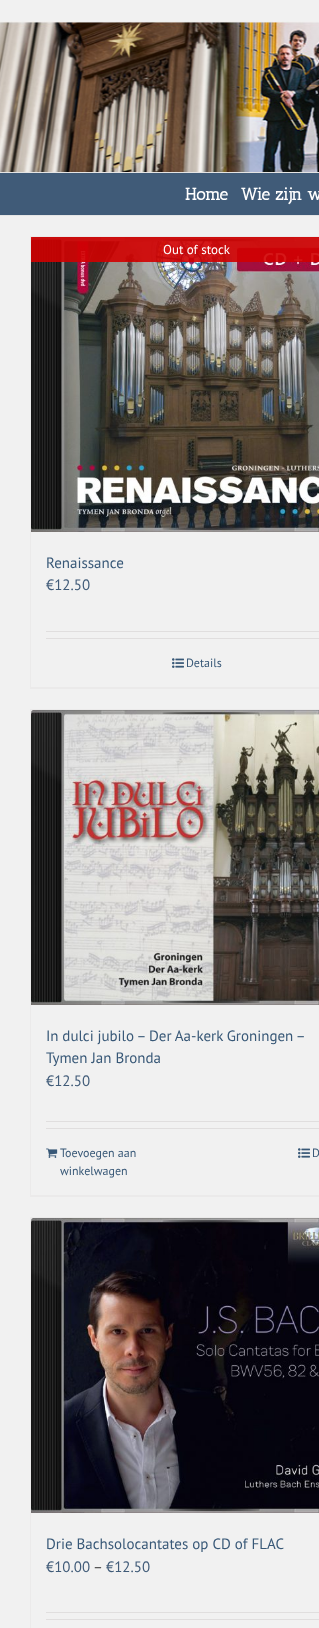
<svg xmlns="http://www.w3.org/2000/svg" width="319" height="1628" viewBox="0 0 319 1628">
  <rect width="100%" height="100%" fill="#f1f1f1"/>
  <image x="0" y="0" width="319" height="172" href="img1.png"/>
  <rect x="0" y="172" width="319" height="1" fill="#e5e5e5"/>
  <rect x="0" y="173" width="319" height="42" fill="#405b78"/>
  <rect x="0" y="215" width="319" height="1" fill="#e5e5e5"/>
  <text x="185" y="200" font-family="Antic Slab" font-size="17" font-weight="bold" fill="#ffffff">Home</text>
  <text x="241" y="200" font-family="Antic Slab" font-size="17" font-weight="bold" fill="#ffffff">Wie zijn w</text>
  <rect x="30" y="236" width="289" height="1" fill="#ebeaea"/>
  <rect x="30" y="687" width="289" height="2" fill="#ebeaea"/>
  <rect x="30" y="236" width="1" height="453" fill="#ebeaea"/>
  <image x="31" y="237" width="288" height="295" href="img2.png"/>
  <rect x="31" y="237" width="288" height="25" fill="#d20000" fill-opacity="0.9"/>
  <text x="163" y="254" font-family="PT Sans" font-size="13" fill="#ffffff">Out of stock</text>
  <text x="46" y="568" font-family="PT Sans" font-size="15" fill="#385877">Renaissance</text>
  <text x="46" y="590" font-family="PT Sans" font-size="15" fill="#405b78">€12.50</text>
  <rect x="46" y="631" width="273" height="1" fill="#e0dede"/>
  <rect x="46" y="638" width="273" height="1" fill="#e0dede"/>
  <image x="172" y="658" width="12" height="10" href="img3.png"/>
  <text x="186" y="667" font-family="PT Sans" font-size="12" fill="#385877">Details</text>
  <rect x="30" y="709" width="289" height="1" fill="#ebeaea"/>
  <rect x="30" y="1195" width="289" height="2" fill="#ebeaea"/>
  <rect x="30" y="709" width="1" height="488" fill="#ebeaea"/>
  <image x="31" y="710" width="288" height="295" href="img4.png"/>
  <text x="46" y="1041" word-spacing="-0.25" font-family="PT Sans" font-size="15" fill="#385877">In dulci jubilo – Der Aa-kerk Groningen –</text>
  <text x="46" y="1063" font-family="PT Sans" font-size="15" fill="#385877">Tymen Jan Bronda</text>
  <text x="46" y="1086" font-family="PT Sans" font-size="15" fill="#405b78">€12.50</text>
  <rect x="46" y="1121" width="273" height="1" fill="#e0dede"/>
  <rect x="46" y="1128" width="273" height="1" fill="#e0dede"/>
  <image x="46" y="1148" width="12" height="10" href="img5.png"/>
  <text x="60" y="1157" font-family="PT Sans" font-size="12" fill="#385877">Toevoegen aan</text>
  <text x="60" y="1175" font-family="PT Sans" font-size="12" fill="#385877">winkelwagen</text>
  <image x="298" y="1148" width="12" height="10" href="img3.png"/>
  <text x="312" y="1157" font-family="PT Sans" font-size="12" fill="#385877">D</text>
  <rect x="30" y="1217" width="289" height="1" fill="#ebeaea"/>
  <rect x="30" y="1217" width="1" height="411" fill="#ebeaea"/>
  <image x="31" y="1218" width="288" height="295" href="img6.png"/>
  <text x="46" y="1549" font-family="PT Sans" font-size="15" fill="#385877">Drie Bachsolocantates op CD of FLAC</text>
  <text x="46" y="1572" font-family="PT Sans" font-size="15" fill="#405b78">€10.00</text>
  <text x="93" y="1572" font-family="PT Sans" font-size="15" fill="#424242">–</text>
  <text x="106" y="1572" font-family="PT Sans" font-size="15" fill="#405b78">€12.50</text>
  <rect x="46" y="1612" width="273" height="1" fill="#e0dede"/>
  <rect x="46" y="1619" width="273" height="1" fill="#e0dede"/>
</svg>
